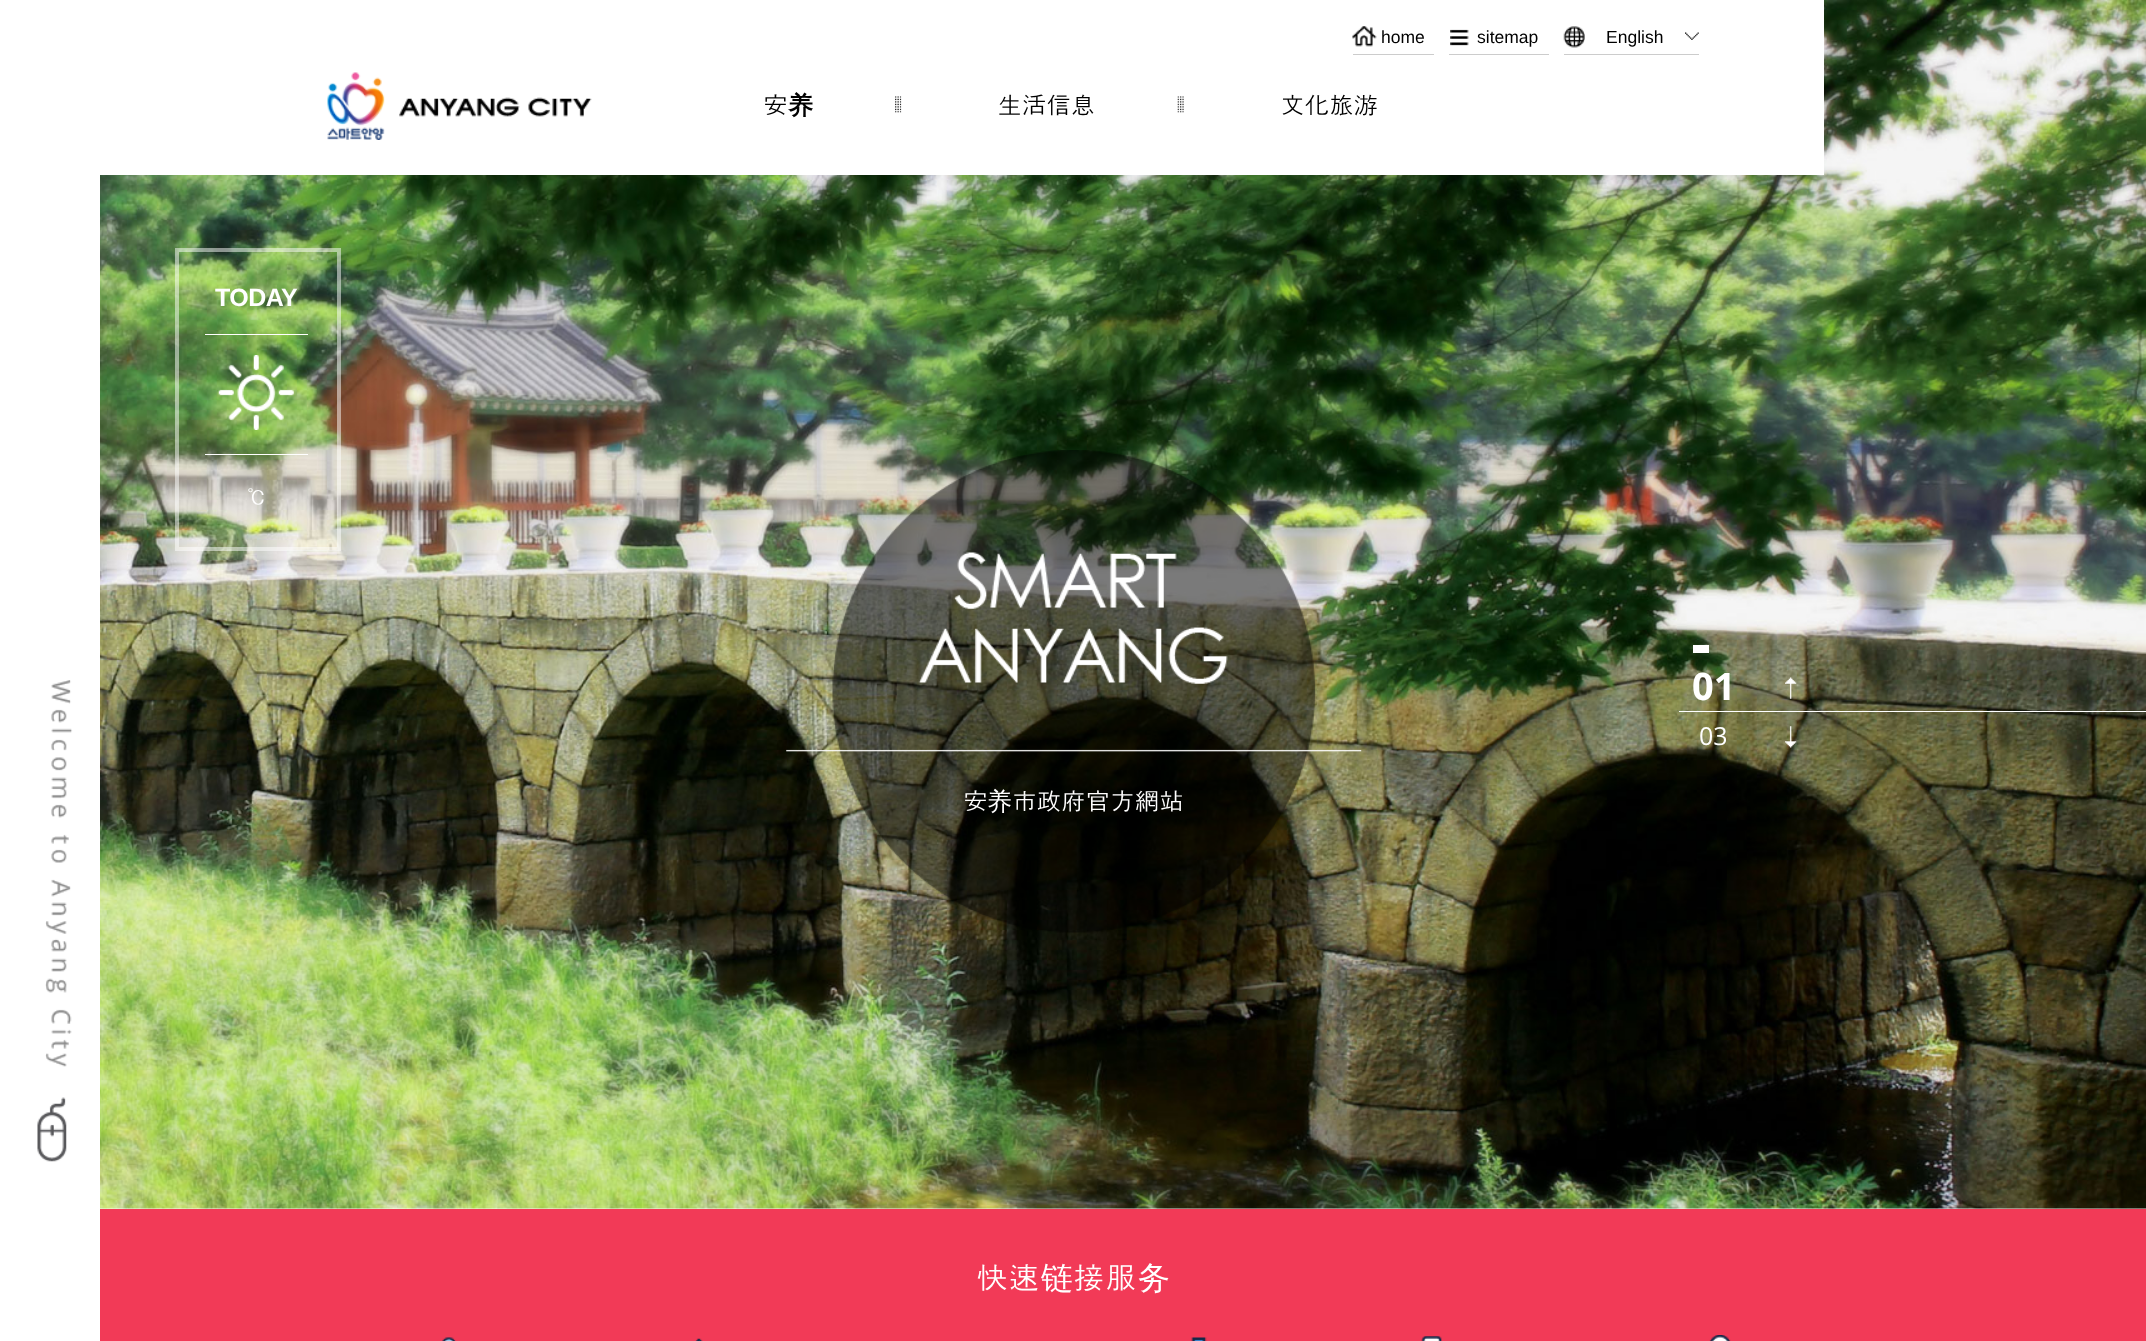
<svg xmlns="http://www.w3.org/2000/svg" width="2146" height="1341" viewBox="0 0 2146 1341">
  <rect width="100%" height="100%" fill="#ffffff"/>
  <image x="100" y="0" width="2046" height="1209" href="img11.png"/>
  <rect x="100" y="0" width="1724" height="175" fill="#ffffff"/>
  <rect x="1353" y="54" width="81" height="1" fill="#cccccc"/>
  <image x="1352" y="26" width="25" height="21" href="img1.png"/>
  <text x="1381" y="43" font-family="Liberation Sans" font-size="17.5" fill="#000000">home</text>
  <rect x="1449" y="54" width="100" height="1" fill="#cccccc"/>
  <image x="1450" y="29" width="19" height="17" href="img2.png"/>
  <text x="1477" y="43" font-family="Liberation Sans" font-size="17.5" fill="#000000">sitemap</text>
  <rect x="1564" y="54" width="135" height="1" fill="#cccccc"/>
  <image x="1563" y="26" width="22" height="22" href="img3.png"/>
  <text x="1606" y="43" font-family="Liberation Sans" font-size="17.5" fill="#000000">English</text>
  <image x="1685" y="32" width="14" height="8" href="img4.png"/>
  <image x="327" y="72" width="265" height="68" href="img5.png"/>
  <text x="763" y="114" font-family="Dotum" font-size="25" letter-spacing="-0.5" fill="#000000">安</text>
  <text x="788" y="114" font-family="WenQuanYi Zen Hei" font-size="25" font-weight="bold" letter-spacing="-0.5" fill="#000000">养</text>
  <image x="895" y="96" width="7" height="17" href="img6.png"/>
  <text x="997" y="114" font-family="Dotum" font-size="25" letter-spacing="-0.5" fill="#000000">生活信息</text>
  <image x="1177" y="96" width="7" height="17" href="img7.png"/>
  <text x="1280" y="114" font-family="Dotum" font-size="25" letter-spacing="-0.5" fill="#000000">文化旅游</text>
  <rect x="177" y="250" width="162" height="299" fill="none" stroke="#ffffff" stroke-opacity="0.5" stroke-width="4"/>
  <rect x="205" y="334" width="103" height="1" fill="#ffffff"/>
  <text x="215" y="306" font-family="Liberation Sans" font-size="25" font-weight="bold" letter-spacing="-0.5" fill="#ffffff">TODAY</text>
  <image x="218" y="355" width="76" height="75" href="img8.png"/>
  <rect x="205" y="454" width="103" height="1" fill="#ffffff"/>
  <text x="245" y="505" font-family="Dotum" font-size="22" fill="#ffffff">℃</text>
  <image x="45" y="680" width="28" height="387" href="img9.png"/>
  <image x="37" y="1097" width="30" height="65" href="img10.png"/>
  <rect x="1693" y="645" width="16" height="8" fill="#ffffff"/>
  <text x="1692" y="700" font-family="Open Sans" font-size="38" font-weight="bold" fill="#ffffff">01</text>
  <text x="1699" y="745" font-family="Open Sans" font-size="25" fill="#ffffff">03</text>
  <image x="1785" y="677" width="12" height="22" href="img12.png"/>
  <image x="1785" y="726" width="12" height="22" href="img13.png"/>
  <image x="786" y="450" width="576" height="483" href="img14.png"/>
  <image x="918" y="552" width="310" height="132" href="img15.png"/>
  <text x="963" y="810" font-family="Dotum" font-size="25" letter-spacing="-0.5" fill="#ffffff">安</text>
  <text x="987" y="810" font-family="WenQuanYi Zen Hei" font-size="25" font-weight="500" letter-spacing="-0.5" fill="#ffffff">养</text>
  <text x="1012" y="810" font-family="Dotum" font-size="25" letter-spacing="-0.5" fill="#ffffff">市政府官方網站</text>
  <rect x="1679" y="711" width="467" height="1" fill="#ffffff"/>
  <rect x="100" y="1209" width="2046" height="132" fill="#f23a57"/>
  <text x="976" y="1289" font-family="Dotum" font-size="32" fill="#ffffff">快速</text>
  <text x="1041" y="1289" font-family="WenQuanYi Zen Hei" font-size="32" font-weight="500" fill="#ffffff">链</text>
  <text x="1073" y="1289" font-family="Dotum" font-size="32" fill="#ffffff">接服</text>
  <text x="1138" y="1289" font-family="WenQuanYi Zen Hei" font-size="32" font-weight="500" fill="#ffffff">务</text>
  <image x="442" y="1337" width="14" height="4" href="img16.png"/>
  <image x="695" y="1338" width="8" height="3" href="img17.png"/>
  <image x="1191" y="1337" width="16" height="4" href="img18.png"/>
  <image x="1421" y="1336" width="21" height="5" href="img19.png"/>
  <image x="1709" y="1335" width="22" height="6" href="img20.png"/>
</svg>
